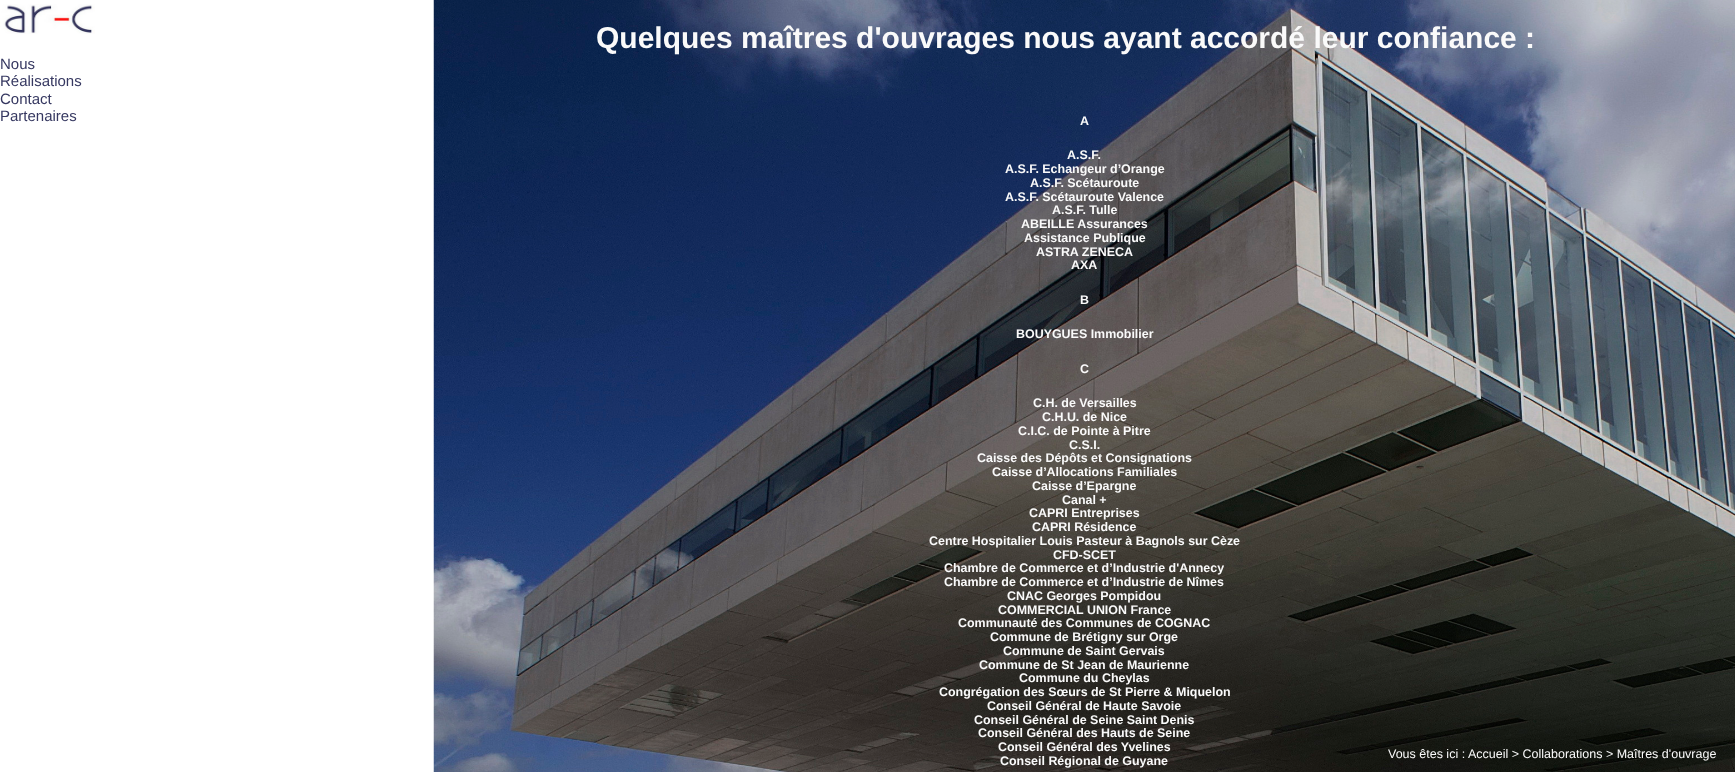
<svg xmlns="http://www.w3.org/2000/svg" width="1735" height="772" viewBox="0 0 1735 772">
  <rect width="100%" height="100%" fill="#ffffff"/>
  <image x="0" y="4" width="95" height="30" href="img1.png"/>
  <text x="0" y="69" font-family="Liberation Sans" font-size="15" fill="#363861">Nous</text>
  <text x="0" y="86" font-family="Liberation Sans" font-size="15" fill="#363861">Réalisations</text>
  <text x="0" y="104" font-family="Liberation Sans" font-size="15" fill="#363861">Contact</text>
  <text x="0" y="121" font-family="Liberation Sans" font-size="15" fill="#363861">Partenaires</text>
  <image x="433" y="0" width="1302" height="772" href="img2.png"/>
  <text x="596" y="48" font-family="Liberation Sans" font-size="30" font-weight="bold" fill="#fafafa">Quelques maîtres d'ouvrages nous ayant accordé leur confiance :</text>
  <text x="1080" y="125" font-family="Liberation Sans" font-size="12.45" font-weight="bold" fill="#fafafa">A</text>
  <text x="1067" y="159" font-family="Liberation Sans" font-size="12.45" font-weight="bold" fill="#fafafa">A.S.F.</text>
  <text x="1005" y="173" font-family="Liberation Sans" font-size="12.45" font-weight="bold" fill="#fafafa">A.S.F. Echangeur d’Orange</text>
  <text x="1030" y="187" font-family="Liberation Sans" font-size="12.45" font-weight="bold" fill="#fafafa">A.S.F. Scétauroute</text>
  <text x="1005" y="201" font-family="Liberation Sans" font-size="12.45" font-weight="bold" fill="#fafafa">A.S.F. Scétauroute Valence</text>
  <text x="1052" y="214" font-family="Liberation Sans" font-size="12.45" font-weight="bold" fill="#fafafa">A.S.F. Tulle</text>
  <text x="1021" y="228" font-family="Liberation Sans" font-size="12.45" font-weight="bold" fill="#fafafa">ABEILLE Assurances</text>
  <text x="1024" y="242" font-family="Liberation Sans" font-size="12.45" font-weight="bold" fill="#fafafa">Assistance Publique</text>
  <text x="1036" y="256" font-family="Liberation Sans" font-size="12.45" font-weight="bold" fill="#fafafa">ASTRA ZENECA</text>
  <text x="1071" y="269" font-family="Liberation Sans" font-size="12.45" font-weight="bold" fill="#fafafa">AXA</text>
  <text x="1080" y="304" font-family="Liberation Sans" font-size="12.45" font-weight="bold" fill="#fafafa">B</text>
  <text x="1016" y="338" font-family="Liberation Sans" font-size="12.45" font-weight="bold" fill="#fafafa">BOUYGUES Immobilier</text>
  <text x="1080" y="373" font-family="Liberation Sans" font-size="12.45" font-weight="bold" fill="#fafafa">C</text>
  <text x="1033" y="407" font-family="Liberation Sans" font-size="12.45" font-weight="bold" fill="#fafafa">C.H. de Versailles</text>
  <text x="1042" y="421" font-family="Liberation Sans" font-size="12.45" font-weight="bold" fill="#fafafa">C.H.U. de Nice</text>
  <text x="1018" y="435" font-family="Liberation Sans" font-size="12.45" font-weight="bold" fill="#fafafa">C.I.C. de Pointe à Pitre</text>
  <text x="1069" y="449" font-family="Liberation Sans" font-size="12.45" font-weight="bold" fill="#fafafa">C.S.I.</text>
  <text x="977" y="462" font-family="Liberation Sans" font-size="12.45" font-weight="bold" fill="#fafafa">Caisse des Dépôts et Consignations</text>
  <text x="992" y="476" font-family="Liberation Sans" font-size="12.45" font-weight="bold" fill="#fafafa">Caisse d’Allocations Familiales</text>
  <text x="1032" y="490" font-family="Liberation Sans" font-size="12.45" font-weight="bold" fill="#fafafa">Caisse d’Epargne</text>
  <text x="1062" y="504" font-family="Liberation Sans" font-size="12.45" font-weight="bold" fill="#fafafa">Canal +</text>
  <text x="1029" y="517" font-family="Liberation Sans" font-size="12.45" font-weight="bold" fill="#fafafa">CAPRI Entreprises</text>
  <text x="1032" y="531" font-family="Liberation Sans" font-size="12.45" font-weight="bold" fill="#fafafa">CAPRI Résidence</text>
  <text x="929" y="545" font-family="Liberation Sans" font-size="12.45" font-weight="bold" fill="#fafafa">Centre Hospitalier Louis Pasteur à Bagnols sur Cèze</text>
  <text x="1053" y="559" font-family="Liberation Sans" font-size="12.45" font-weight="bold" fill="#fafafa">CFD-SCET</text>
  <text x="944" y="572" font-family="Liberation Sans" font-size="12.45" font-weight="bold" fill="#fafafa">Chambre de Commerce et d’Industrie d'Annecy</text>
  <text x="944" y="586" font-family="Liberation Sans" font-size="12.45" font-weight="bold" fill="#fafafa">Chambre de Commerce et d’Industrie de Nîmes</text>
  <text x="1007" y="600" font-family="Liberation Sans" font-size="12.45" font-weight="bold" fill="#fafafa">CNAC Georges Pompidou</text>
  <text x="998" y="614" font-family="Liberation Sans" font-size="12.45" font-weight="bold" fill="#fafafa">COMMERCIAL UNION France</text>
  <text x="958" y="627" font-family="Liberation Sans" font-size="12.45" font-weight="bold" fill="#fafafa">Communauté des Communes de COGNAC</text>
  <text x="990" y="641" font-family="Liberation Sans" font-size="12.45" font-weight="bold" fill="#fafafa">Commune de Brétigny sur Orge</text>
  <text x="1003" y="655" font-family="Liberation Sans" font-size="12.45" font-weight="bold" fill="#fafafa">Commune de Saint Gervais</text>
  <text x="979" y="669" font-family="Liberation Sans" font-size="12.45" font-weight="bold" fill="#fafafa">Commune de St Jean de Maurienne</text>
  <text x="1019" y="682" font-family="Liberation Sans" font-size="12.45" font-weight="bold" fill="#fafafa">Commune du Cheylas</text>
  <text x="939" y="696" font-family="Liberation Sans" font-size="12.45" font-weight="bold" fill="#fafafa">Congrégation des Sœurs de St Pierre &amp; Miquelon</text>
  <text x="987" y="710" font-family="Liberation Sans" font-size="12.45" font-weight="bold" fill="#fafafa">Conseil Général de Haute Savoie</text>
  <text x="974" y="724" font-family="Liberation Sans" font-size="12.45" font-weight="bold" fill="#fafafa">Conseil Général de Seine Saint Denis</text>
  <text x="978" y="737" font-family="Liberation Sans" font-size="12.45" font-weight="bold" fill="#fafafa">Conseil Général des Hauts de Seine</text>
  <text x="998" y="751" font-family="Liberation Sans" font-size="12.45" font-weight="bold" fill="#fafafa">Conseil Général des Yvelines</text>
  <text x="1000" y="765" font-family="Liberation Sans" font-size="12.45" font-weight="bold" fill="#fafafa">Conseil Régional de Guyane</text>
  <text x="1388" y="758" font-family="Liberation Sans" font-size="12.5" fill="#fafafa">Vous êtes ici :</text>
  <text x="1468" y="758" font-family="Liberation Sans" font-size="12.5" fill="#fafafa">Accueil &gt; Collaborations &gt; Maîtres d'ouvrage</text>
</svg>
